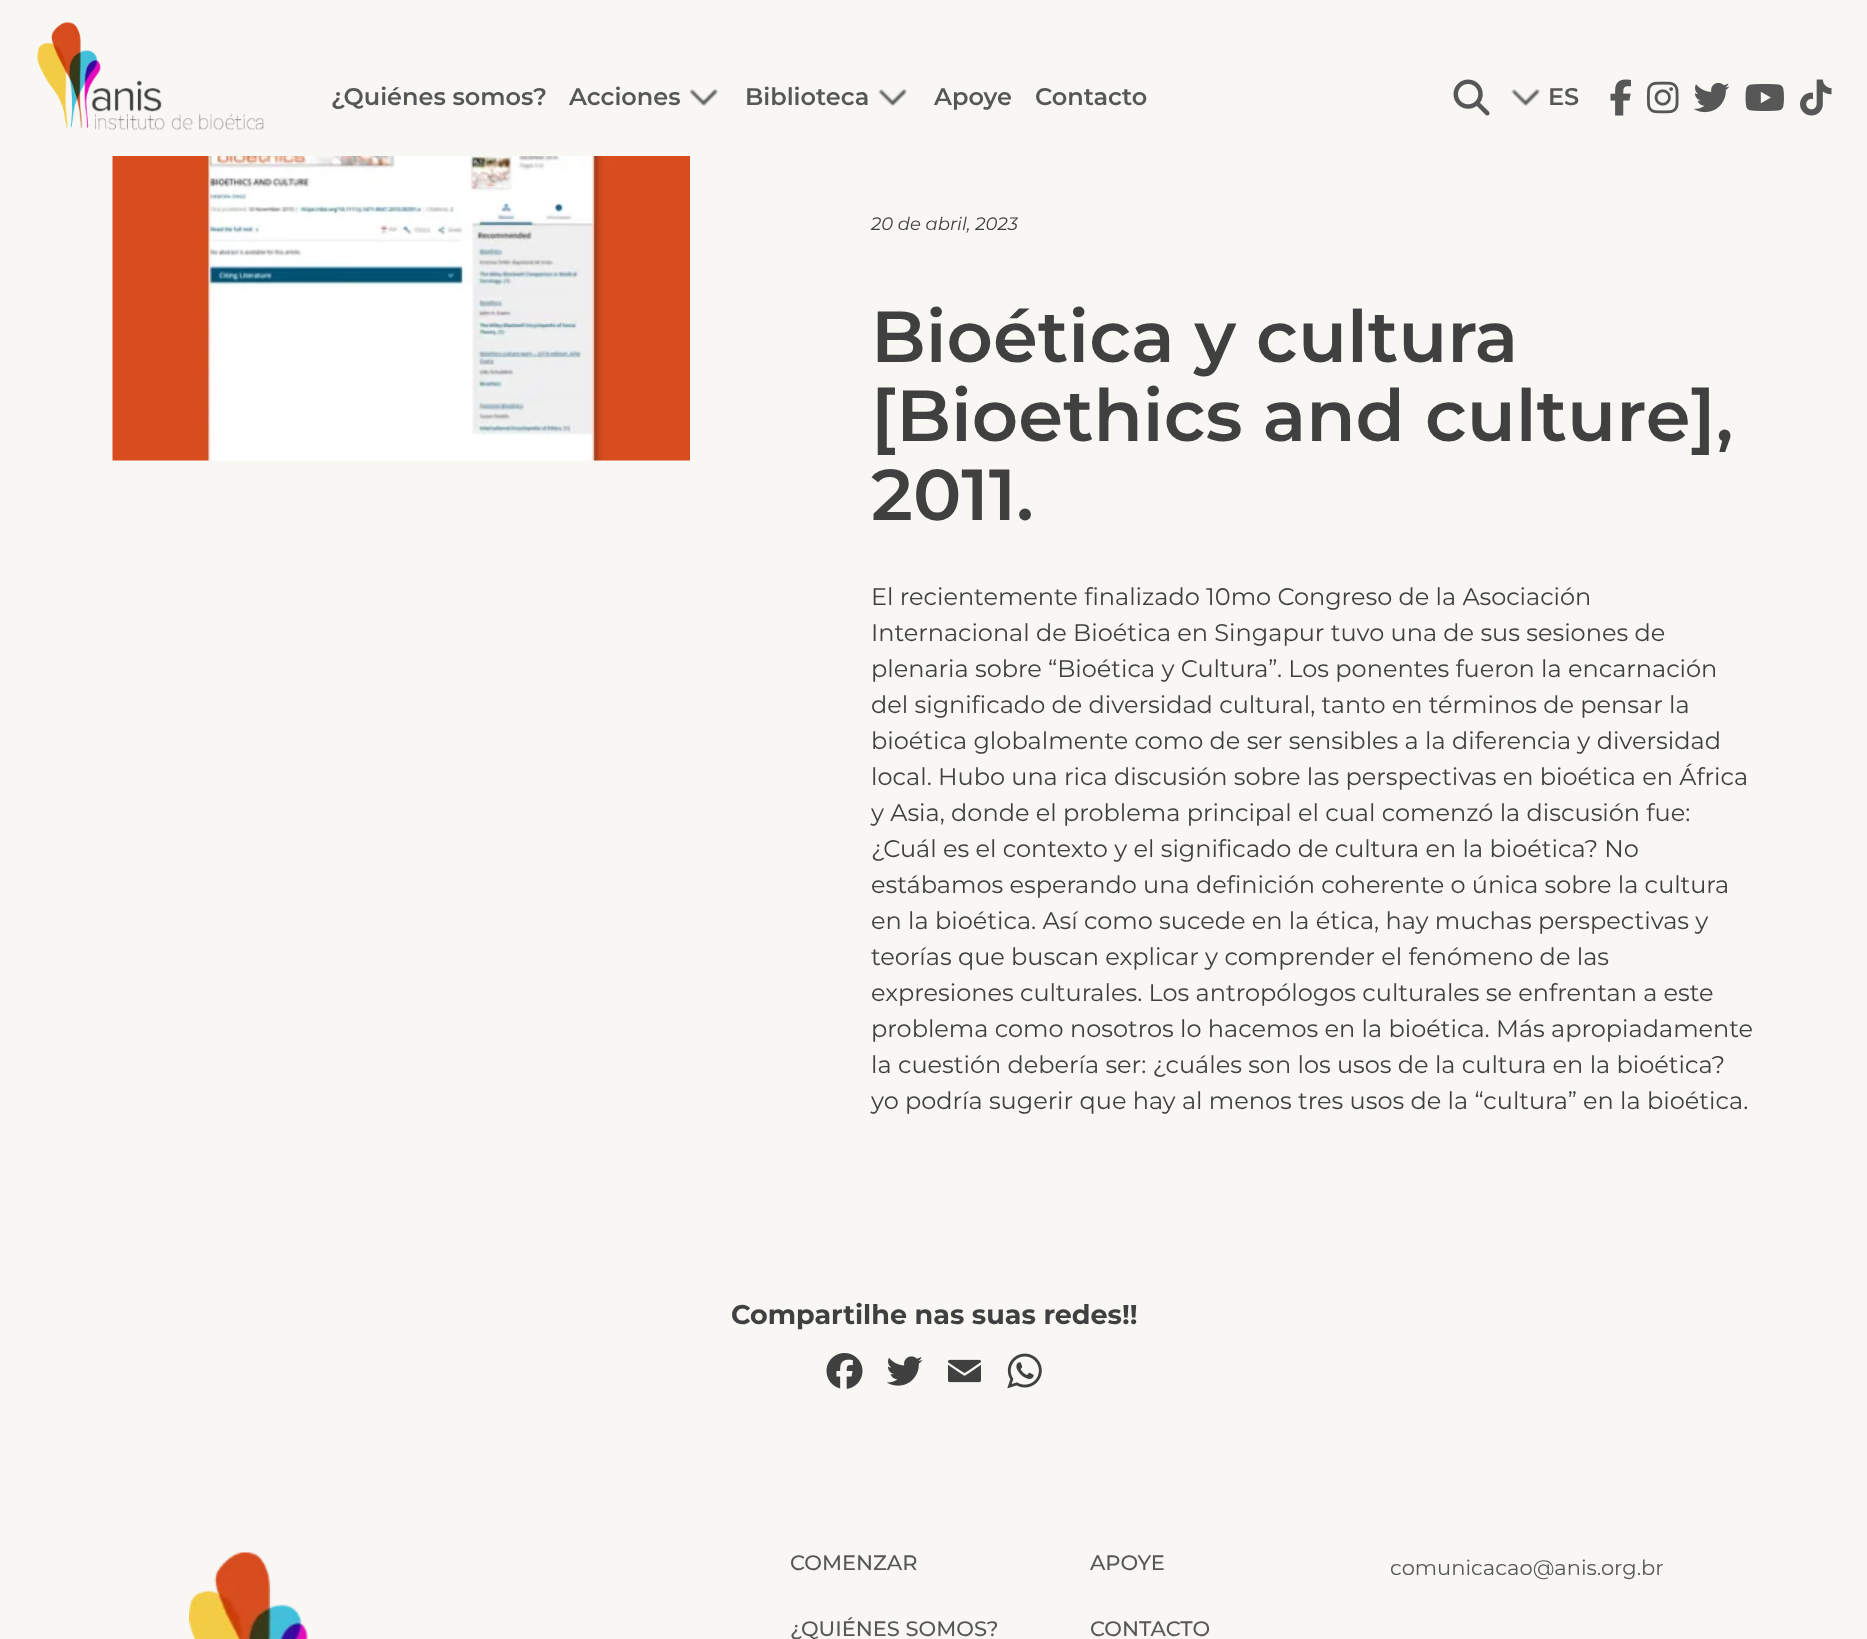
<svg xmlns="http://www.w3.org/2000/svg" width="1867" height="1639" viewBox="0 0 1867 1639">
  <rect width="100%" height="100%" fill="#f8f7f3"/>
  <image x="37" y="22" width="227" height="108" href="img1.png"/>
  <text x="331" y="105" font-family="Montserrat" font-size="24" font-weight="600" fill="#575757">¿Quiénes somos?</text>
  <text x="569" y="105" font-family="Montserrat" font-size="24" font-weight="600" fill="#575757">Acciones</text>
  <image x="689" y="89" width="29" height="17" href="img2.png"/>
  <text x="745" y="105" font-family="Montserrat" font-size="24" font-weight="600" fill="#575757">Biblioteca</text>
  <image x="878" y="89" width="29" height="17" href="img2.png"/>
  <text x="934" y="105" font-family="Montserrat" font-size="24" font-weight="600" fill="#575757">Apoye</text>
  <text x="1035" y="105" font-family="Montserrat" font-size="24" font-weight="600" fill="#575757">Contacto</text>
  <image x="1453" y="79" width="37" height="37" href="img3.png"/>
  <image x="1511" y="89" width="29" height="17" href="img2.png"/>
  <text x="1548" y="105" font-family="Montserrat" font-size="24" font-weight="600" fill="#575757">ES</text>
  <image x="1610" y="79" width="21" height="37" href="img4.png"/>
  <image x="1647" y="81" width="32" height="33" href="img5.png"/>
  <image x="1693" y="82" width="37" height="31" href="img6.png"/>
  <image x="1745" y="84" width="39" height="27" href="img7.png"/>
  <image x="1800" y="79" width="32" height="37" href="img8.png"/>
  <image x="112" y="156" width="578" height="305" href="img9.png"/>
  <text x="871" y="230" font-family="Montserrat" font-size="18" font-style="italic" fill="#404040">20 de abril, 2023</text>
  <text x="871" y="362" font-family="Montserrat" font-size="72" font-weight="600" fill="#404040">Bioética y cultura</text>
  <text x="871" y="441" font-family="Montserrat" font-size="72" font-weight="600" fill="#404040">[Bioethics and culture],</text>
  <text x="871" y="520" font-family="Montserrat" font-size="72" font-weight="600" fill="#404040">2011.</text>
  <text x="871" y="605" font-family="Montserrat" font-size="24" fill="#404040">El recientemente finalizado 10mo Congreso de la Asociación</text>
  <text x="871" y="641" font-family="Montserrat" font-size="24" fill="#404040">Internacional de Bioética en Singapur tuvo una de sus sesiones de</text>
  <text x="871" y="677" font-family="Montserrat" font-size="24" fill="#404040">plenaria sobre “Bioética y Cultura”. Los ponentes fueron la encarnación</text>
  <text x="871" y="713" font-family="Montserrat" font-size="24" fill="#404040">del significado de diversidad cultural, tanto en términos de pensar la</text>
  <text x="871" y="749" font-family="Montserrat" font-size="24" fill="#404040">bioética globalmente como de ser sensibles a la diferencia y diversidad</text>
  <text x="871" y="785" font-family="Montserrat" font-size="24" fill="#404040">local. Hubo una rica discusión sobre las perspectivas en bioética en África</text>
  <text x="871" y="821" font-family="Montserrat" font-size="24" fill="#404040">y Asia, donde el problema principal el cual comenzó la discusión fue:</text>
  <text x="871" y="857" font-family="Montserrat" font-size="24" fill="#404040">¿Cuál es el contexto y el significado de cultura en la bioética? No</text>
  <text x="871" y="893" font-family="Montserrat" font-size="24" fill="#404040">estábamos esperando una definición coherente o única sobre la cultura</text>
  <text x="871" y="929" font-family="Montserrat" font-size="24" fill="#404040">en la bioética. Así como sucede en la ética, hay muchas perspectivas y</text>
  <text x="871" y="965" font-family="Montserrat" font-size="24" fill="#404040">teorías que buscan explicar y comprender el fenómeno de las</text>
  <text x="871" y="1001" font-family="Montserrat" font-size="24" fill="#404040">expresiones culturales. Los antropólogos culturales se enfrentan a este</text>
  <text x="871" y="1037" font-family="Montserrat" font-size="24" fill="#404040">problema como nosotros lo hacemos en la bioética. Más apropiadamente</text>
  <text x="871" y="1073" font-family="Montserrat" font-size="24" fill="#404040">la cuestión debería ser: ¿cuáles son los usos de la cultura en la bioética?</text>
  <text x="871" y="1109" font-family="Montserrat" font-size="24" fill="#404040">yo podría sugerir que hay al menos tres usos de la “cultura” en la bioética.</text>
  <text x="731" y="1324" font-family="Montserrat" font-size="27" font-weight="bold" fill="#404040">Compartilhe nas suas redes!!</text>
  <image x="826" y="1353" width="37" height="36" href="img10.png"/>
  <image x="886" y="1356" width="37" height="30" href="img11.png"/>
  <image x="948" y="1359" width="33" height="24" href="img12.png"/>
  <image x="1007" y="1353" width="35" height="36" href="img13.png"/>
  <image x="189" y="1552" width="119" height="87" href="img14.png"/>
  <text x="790" y="1570" font-family="Montserrat" font-size="21" font-weight="500" fill="#575757">COMENZAR</text>
  <text x="1090" y="1570" font-family="Montserrat" font-size="21" font-weight="500" fill="#575757">APOYE</text>
  <text x="790" y="1636" font-family="Montserrat" font-size="21" font-weight="500" fill="#575757">¿QUIÉNES SOMOS?</text>
  <text x="1090" y="1636" font-family="Montserrat" font-size="21" font-weight="500" fill="#575757">CONTACTO</text>
  <text x="1390" y="1575" font-family="Montserrat" font-size="21" fill="#575757">comunicacao@anis.org.br</text>
</svg>
